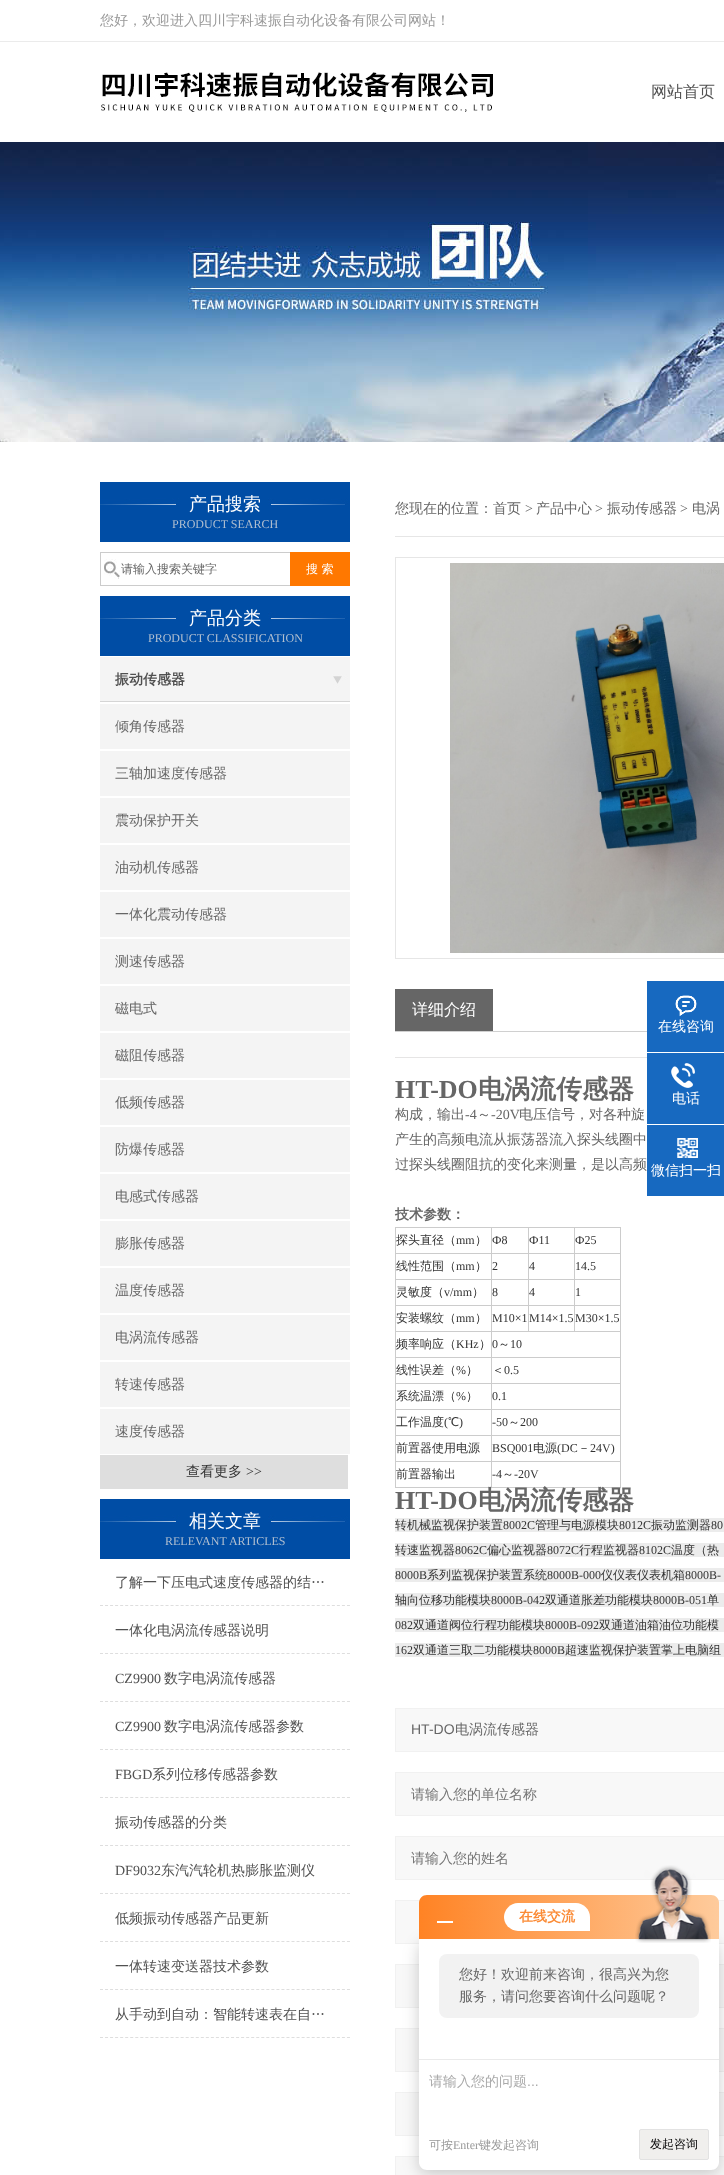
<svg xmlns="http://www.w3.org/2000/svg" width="724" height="2175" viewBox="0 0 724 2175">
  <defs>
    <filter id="blur1" x="-50%" y="-200%" width="200%" height="500%"><feGaussianBlur stdDeviation="8"/></filter>
    <linearGradient id="g1" gradientUnits="userSpaceOnUse" x1="419" y1="1917" x2="719" y2="1917"><stop offset="0" stop-color="#ff8324"/><stop offset="1" stop-color="#fecb9c"/></linearGradient>
  </defs>
  <rect width="100%" height="100%" fill="#ffffff"/>
  <rect x="0" y="41" width="724" height="1" fill="#ebebeb"/>
  <text x="100" y="25" font-family="WenQuanYi Zen Hei" font-size="14" font-weight="500" fill="#999999">您好，欢迎进入四川宇科速振自动化设备有限公司网站！</text>
  <image x="101" y="72" width="392" height="40" href="img1.png"/>
  <text x="651" y="97" font-family="WenQuanYi Zen Hei" font-size="16" font-weight="500" fill="#515151">网站首页</text>
  <image x="0" y="142" width="724" height="300" href="img2.png"/>
  <image x="100" y="482" width="250" height="60" href="img3.png"/>
  <text x="189" y="510" font-family="WenQuanYi Zen Hei" font-size="18" font-weight="500" fill="#ffffff">产品搜索</text>
  <text x="172" y="528" font-family="Liberation Serif" font-size="12" fill="#b0bfd0">PRODUCT SEARCH</text>
  <image x="104" y="559" width="16" height="20" href="img4.png"/>
  <rect x="100" y="552" width="190" height="1" fill="#cccccc"/>
  <rect x="100" y="585" width="190" height="1" fill="#cccccc"/>
  <rect x="100" y="552" width="1" height="34" fill="#cccccc"/>
  <text x="121" y="573" font-family="WenQuanYi Zen Hei" font-size="12" font-weight="500" fill="#666666">请输入搜索关键字</text>
  <rect x="290" y="552" width="60" height="34" fill="#ff7800"/>
  <text x="306" y="573" font-family="WenQuanYi Zen Hei" font-size="12" font-weight="500" fill="#ffffff">搜 索</text>
  <image x="100" y="596" width="250" height="60" href="img3.png"/>
  <text x="189" y="624" font-family="WenQuanYi Zen Hei" font-size="18" font-weight="500" fill="#ffffff">产品分类</text>
  <text x="148" y="642" font-family="Liberation Serif" font-size="12" fill="#b0bfd0">PRODUCT CLASSIFICATION</text>
  <image x="100" y="657" width="250" height="45" href="img5.png"/>
  <text x="115" y="684" font-family="WenQuanYi Zen Hei" font-size="14" font-weight="bold" fill="#515151">振动传感器</text>
  <rect x="100" y="704" width="250" height="45" fill="#f4f4f4"/>
  <text x="115" y="731" font-family="WenQuanYi Zen Hei" font-size="14" font-weight="500" fill="#666666">倾角传感器</text>
  <rect x="100" y="751" width="250" height="45" fill="#f4f4f4"/>
  <text x="115" y="778" font-family="WenQuanYi Zen Hei" font-size="14" font-weight="500" fill="#666666">三轴加速度传感器</text>
  <rect x="100" y="798" width="250" height="45" fill="#f4f4f4"/>
  <text x="115" y="825" font-family="WenQuanYi Zen Hei" font-size="14" font-weight="500" fill="#666666">震动保护开关</text>
  <rect x="100" y="845" width="250" height="45" fill="#f4f4f4"/>
  <text x="115" y="872" font-family="WenQuanYi Zen Hei" font-size="14" font-weight="500" fill="#666666">油动机传感器</text>
  <rect x="100" y="892" width="250" height="45" fill="#f4f4f4"/>
  <text x="115" y="919" font-family="WenQuanYi Zen Hei" font-size="14" font-weight="500" fill="#666666">一体化震动传感器</text>
  <rect x="100" y="939" width="250" height="45" fill="#f4f4f4"/>
  <text x="115" y="966" font-family="WenQuanYi Zen Hei" font-size="14" font-weight="500" fill="#666666">测速传感器</text>
  <rect x="100" y="986" width="250" height="45" fill="#f4f4f4"/>
  <text x="115" y="1013" font-family="WenQuanYi Zen Hei" font-size="14" font-weight="500" fill="#666666">磁电式</text>
  <rect x="100" y="1033" width="250" height="45" fill="#f4f4f4"/>
  <text x="115" y="1060" font-family="WenQuanYi Zen Hei" font-size="14" font-weight="500" fill="#666666">磁阻传感器</text>
  <rect x="100" y="1080" width="250" height="45" fill="#f4f4f4"/>
  <text x="115" y="1107" font-family="WenQuanYi Zen Hei" font-size="14" font-weight="500" fill="#666666">低频传感器</text>
  <rect x="100" y="1127" width="250" height="45" fill="#f4f4f4"/>
  <text x="115" y="1154" font-family="WenQuanYi Zen Hei" font-size="14" font-weight="500" fill="#666666">防爆传感器</text>
  <rect x="100" y="1174" width="250" height="45" fill="#f4f4f4"/>
  <text x="115" y="1201" font-family="WenQuanYi Zen Hei" font-size="14" font-weight="500" fill="#666666">电感式传感器</text>
  <rect x="100" y="1221" width="250" height="45" fill="#f4f4f4"/>
  <text x="115" y="1248" font-family="WenQuanYi Zen Hei" font-size="14" font-weight="500" fill="#666666">膨胀传感器</text>
  <rect x="100" y="1268" width="250" height="45" fill="#f4f4f4"/>
  <text x="115" y="1295" font-family="WenQuanYi Zen Hei" font-size="14" font-weight="500" fill="#666666">温度传感器</text>
  <rect x="100" y="1315" width="250" height="45" fill="#f4f4f4"/>
  <text x="115" y="1342" font-family="WenQuanYi Zen Hei" font-size="14" font-weight="500" fill="#666666">电涡流传感器</text>
  <rect x="100" y="1362" width="250" height="45" fill="#f4f4f4"/>
  <text x="115" y="1389" font-family="WenQuanYi Zen Hei" font-size="14" font-weight="500" fill="#666666">转速传感器</text>
  <rect x="100" y="1409" width="250" height="45" fill="#f4f4f4"/>
  <text x="115" y="1436" font-family="WenQuanYi Zen Hei" font-size="14" font-weight="500" fill="#666666">速度传感器</text>
  <rect x="100" y="1455" width="248" height="34" fill="#dedede"/>
  <text x="186" y="1476" font-family="WenQuanYi Zen Hei" font-size="14" font-weight="500" fill="#333333">查看更多</text>
  <text x="246" y="1476" font-family="Liberation Serif" font-size="14" fill="#333333">&gt;&gt;</text>
  <image x="100" y="1499" width="250" height="60" href="img3.png"/>
  <text x="189" y="1527" font-family="WenQuanYi Zen Hei" font-size="18" font-weight="500" fill="#ffffff">相关文章</text>
  <text x="165" y="1545" font-family="Liberation Serif" font-size="12" fill="#b0bfd0">RELEVANT ARTICLES</text>
  <path d="M100 1605.5H350" fill="none" stroke="#dedede" stroke-dasharray="3 2.04"/>
  <text x="115" y="1587" font-family="WenQuanYi Zen Hei" font-size="14" font-weight="500" fill="#515151">了解一下压电式速度传感器的结…</text>
  <path d="M100 1653.5H350" fill="none" stroke="#dedede" stroke-dasharray="3 2.04"/>
  <text x="115" y="1635" font-family="WenQuanYi Zen Hei" font-size="14" font-weight="500" fill="#515151">一体化电涡流传感器说明</text>
  <path d="M100 1701.5H350" fill="none" stroke="#dedede" stroke-dasharray="3 2.04"/>
  <text x="115" y="1683" font-family="Liberation Serif" font-size="14" fill="#515151">CZ9900</text>
  <text x="164" y="1683" font-family="WenQuanYi Zen Hei" font-size="14" font-weight="500" fill="#515151">数字电涡流传感器</text>
  <path d="M100 1749.5H350" fill="none" stroke="#dedede" stroke-dasharray="3 2.04"/>
  <text x="115" y="1731" font-family="Liberation Serif" font-size="14" fill="#515151">CZ9900</text>
  <text x="164" y="1731" font-family="WenQuanYi Zen Hei" font-size="14" font-weight="500" fill="#515151">数字电涡流传感器参数</text>
  <path d="M100 1797.5H350" fill="none" stroke="#dedede" stroke-dasharray="3 2.04"/>
  <text x="115" y="1779" font-family="Liberation Serif" font-size="14" fill="#515151">FBGD</text>
  <text x="152" y="1779" font-family="WenQuanYi Zen Hei" font-size="14" font-weight="500" fill="#515151">系列位移传感器参数</text>
  <path d="M100 1845.5H350" fill="none" stroke="#dedede" stroke-dasharray="3 2.04"/>
  <text x="115" y="1827" font-family="WenQuanYi Zen Hei" font-size="14" font-weight="500" fill="#515151">振动传感器的分类</text>
  <path d="M100 1893.5H350" fill="none" stroke="#dedede" stroke-dasharray="3 2.04"/>
  <text x="115" y="1875" font-family="Liberation Serif" font-size="14" fill="#515151">DF9032</text>
  <text x="161" y="1875" font-family="WenQuanYi Zen Hei" font-size="14" font-weight="500" fill="#515151">东汽汽轮机热膨胀监测仪</text>
  <path d="M100 1941.5H350" fill="none" stroke="#dedede" stroke-dasharray="3 2.04"/>
  <text x="115" y="1923" font-family="WenQuanYi Zen Hei" font-size="14" font-weight="500" fill="#515151">低频振动传感器产品更新</text>
  <path d="M100 1989.5H350" fill="none" stroke="#dedede" stroke-dasharray="3 2.04"/>
  <text x="115" y="1971" font-family="WenQuanYi Zen Hei" font-size="14" font-weight="500" fill="#515151">一体转速变送器技术参数</text>
  <path d="M100 2037.5H350" fill="none" stroke="#dedede" stroke-dasharray="3 2.04"/>
  <text x="115" y="2019" font-family="WenQuanYi Zen Hei" font-size="14" font-weight="500" fill="#515151">从手动到自动：智能转速表在自…</text>
  <rect x="395" y="536" width="329" height="1" fill="#e6e6e6"/>
  <text x="395" y="513" font-family="WenQuanYi Zen Hei" font-size="14" font-weight="500" fill="#666666">您现在的位置：首页</text>
  <text x="525" y="513" font-family="Liberation Serif" font-size="14" fill="#666666">&gt;</text>
  <text x="536" y="513" font-family="WenQuanYi Zen Hei" font-size="14" font-weight="500" fill="#666666">产品中心</text>
  <text x="595" y="513" font-family="Liberation Serif" font-size="14" fill="#666666">&gt;</text>
  <text x="607" y="513" font-family="WenQuanYi Zen Hei" font-size="14" font-weight="500" fill="#666666">振动传感器</text>
  <text x="680" y="513" font-family="Liberation Serif" font-size="14" fill="#666666">&gt;</text>
  <text x="692" y="513" font-family="WenQuanYi Zen Hei" font-size="14" font-weight="500" fill="#666666">电涡</text>
  <rect x="395.5" y="557.5" width="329" height="401" fill="none" stroke="#e6e6e6"/>
  <image x="450" y="563" width="274" height="390" href="img6.png"/>
  <rect x="395" y="1031" width="252" height="1" fill="#d0d0d0"/>
  <rect x="395" y="989" width="98" height="42" fill="#666666"/>
  <text x="412" y="1015" font-family="WenQuanYi Zen Hei" font-size="16" font-weight="500" fill="#ffffff">详细介绍</text>
  <rect x="395" y="1057" width="252" height="1" fill="#e6e5e5"/>
  <text x="395" y="1098" font-family="Liberation Serif" font-size="26" font-weight="bold" fill="#666666">HT-DO</text>
  <text x="478" y="1098" font-family="WenQuanYi Zen Hei" font-size="26" font-weight="bold" fill="#666666">电涡流传感器</text>
  <text x="395" y="1119" font-family="WenQuanYi Zen Hei" font-size="14" font-weight="500" fill="#666666">构成，输出</text>
  <text x="465" y="1119" font-family="Liberation Serif" font-size="14" fill="#666666">-4</text>
  <text x="477" y="1119" font-family="WenQuanYi Zen Hei" font-size="14" font-weight="500" fill="#666666">～</text>
  <text x="491" y="1119" font-family="Liberation Serif" font-size="14" fill="#666666">-20V</text>
  <text x="519" y="1119" font-family="WenQuanYi Zen Hei" font-size="14" font-weight="500" fill="#666666">电压信号，对各种旋</text>
  <text x="395" y="1144" font-family="WenQuanYi Zen Hei" font-size="14" font-weight="500" fill="#666666">产生的高频电流从振荡器流入探头线圈中</text>
  <text x="395" y="1169" font-family="WenQuanYi Zen Hei" font-size="14" font-weight="500" fill="#666666">过探头线圈阻抗的变化来测量，是以高频</text>
  <text x="395" y="1219" font-family="WenQuanYi Zen Hei" font-size="14" font-weight="bold" fill="#666666">技术参数：</text>
  <rect x="574" y="1227" width="47" height="1" fill="#cccccc"/>
  <rect x="574" y="1253" width="47" height="1" fill="#cccccc"/>
  <rect x="574" y="1279" width="47" height="1" fill="#cccccc"/>
  <rect x="574" y="1305" width="47" height="1" fill="#cccccc"/>
  <rect x="491" y="1331" width="130" height="1" fill="#cccccc"/>
  <rect x="574" y="1305" width="1" height="27" fill="#cccccc"/>
  <rect x="528" y="1305" width="47" height="1" fill="#cccccc"/>
  <rect x="574" y="1279" width="1" height="27" fill="#cccccc"/>
  <rect x="528" y="1279" width="47" height="1" fill="#cccccc"/>
  <rect x="574" y="1253" width="1" height="27" fill="#cccccc"/>
  <rect x="528" y="1253" width="47" height="1" fill="#cccccc"/>
  <rect x="574" y="1227" width="1" height="27" fill="#cccccc"/>
  <rect x="528" y="1227" width="47" height="1" fill="#cccccc"/>
  <rect x="528" y="1305" width="1" height="27" fill="#cccccc"/>
  <rect x="491" y="1305" width="38" height="1" fill="#cccccc"/>
  <rect x="528" y="1279" width="1" height="27" fill="#cccccc"/>
  <rect x="491" y="1279" width="38" height="1" fill="#cccccc"/>
  <rect x="528" y="1253" width="1" height="27" fill="#cccccc"/>
  <rect x="491" y="1253" width="38" height="1" fill="#cccccc"/>
  <rect x="528" y="1227" width="1" height="27" fill="#cccccc"/>
  <rect x="491" y="1227" width="38" height="1" fill="#cccccc"/>
  <rect x="491" y="1357" width="130" height="1" fill="#cccccc"/>
  <rect x="491" y="1383" width="130" height="1" fill="#cccccc"/>
  <rect x="491" y="1409" width="130" height="1" fill="#cccccc"/>
  <rect x="491" y="1435" width="130" height="1" fill="#cccccc"/>
  <rect x="491" y="1461" width="130" height="1" fill="#cccccc"/>
  <rect x="620" y="1461" width="1" height="27" fill="#cccccc"/>
  <rect x="491" y="1487" width="130" height="1" fill="#cccccc"/>
  <rect x="491" y="1461" width="1" height="27" fill="#cccccc"/>
  <rect x="395" y="1461" width="97" height="1" fill="#cccccc"/>
  <rect x="491" y="1435" width="1" height="27" fill="#cccccc"/>
  <rect x="395" y="1435" width="97" height="1" fill="#cccccc"/>
  <rect x="491" y="1409" width="1" height="27" fill="#cccccc"/>
  <rect x="395" y="1409" width="97" height="1" fill="#cccccc"/>
  <rect x="491" y="1383" width="1" height="27" fill="#cccccc"/>
  <rect x="395" y="1383" width="97" height="1" fill="#cccccc"/>
  <rect x="491" y="1357" width="1" height="27" fill="#cccccc"/>
  <rect x="395" y="1357" width="97" height="1" fill="#cccccc"/>
  <rect x="491" y="1331" width="1" height="27" fill="#cccccc"/>
  <rect x="395" y="1331" width="97" height="1" fill="#cccccc"/>
  <rect x="491" y="1305" width="1" height="27" fill="#cccccc"/>
  <rect x="395" y="1305" width="97" height="1" fill="#cccccc"/>
  <rect x="491" y="1279" width="1" height="27" fill="#cccccc"/>
  <rect x="395" y="1279" width="97" height="1" fill="#cccccc"/>
  <rect x="491" y="1253" width="1" height="27" fill="#cccccc"/>
  <rect x="395" y="1253" width="97" height="1" fill="#cccccc"/>
  <rect x="491" y="1227" width="1" height="27" fill="#cccccc"/>
  <rect x="395" y="1227" width="97" height="1" fill="#cccccc"/>
  <rect x="395" y="1487" width="97" height="1" fill="#cccccc"/>
  <rect x="395" y="1461" width="1" height="27" fill="#cccccc"/>
  <rect x="395" y="1435" width="1" height="27" fill="#cccccc"/>
  <rect x="395" y="1409" width="1" height="27" fill="#cccccc"/>
  <rect x="395" y="1383" width="1" height="27" fill="#cccccc"/>
  <rect x="395" y="1357" width="1" height="27" fill="#cccccc"/>
  <rect x="395" y="1331" width="1" height="27" fill="#cccccc"/>
  <rect x="395" y="1305" width="1" height="27" fill="#cccccc"/>
  <rect x="395" y="1279" width="1" height="27" fill="#cccccc"/>
  <rect x="395" y="1253" width="1" height="27" fill="#cccccc"/>
  <rect x="395" y="1227" width="1" height="27" fill="#cccccc"/>
  <text x="396" y="1244" font-family="WenQuanYi Zen Hei" font-size="12" font-weight="500" fill="#333333">探头直径（</text>
  <text x="456" y="1244" font-family="Liberation Serif" font-size="12" fill="#333333">mm</text>
  <text x="475" y="1244" font-family="WenQuanYi Zen Hei" font-size="12" font-weight="500" fill="#333333">）</text>
  <text x="492" y="1244" font-family="Liberation Serif" font-size="12" fill="#333333">Ф8</text>
  <text x="529" y="1244" font-family="Liberation Serif" font-size="12" fill="#333333">Ф11</text>
  <rect x="620" y="1435" width="1" height="27" fill="#cccccc"/>
  <rect x="620" y="1409" width="1" height="27" fill="#cccccc"/>
  <rect x="620" y="1383" width="1" height="27" fill="#cccccc"/>
  <rect x="620" y="1357" width="1" height="27" fill="#cccccc"/>
  <rect x="620" y="1331" width="1" height="27" fill="#cccccc"/>
  <rect x="620" y="1305" width="1" height="27" fill="#cccccc"/>
  <rect x="620" y="1279" width="1" height="27" fill="#cccccc"/>
  <rect x="620" y="1253" width="1" height="27" fill="#cccccc"/>
  <rect x="620" y="1227" width="1" height="27" fill="#cccccc"/>
  <text x="575" y="1244" font-family="Liberation Serif" font-size="12" fill="#333333">Ф25</text>
  <text x="396" y="1270" font-family="WenQuanYi Zen Hei" font-size="12" font-weight="500" fill="#333333">线性范围（</text>
  <text x="456" y="1270" font-family="Liberation Serif" font-size="12" fill="#333333">mm</text>
  <text x="475" y="1270" font-family="WenQuanYi Zen Hei" font-size="12" font-weight="500" fill="#333333">）</text>
  <text x="492" y="1270" font-family="Liberation Serif" font-size="12" fill="#333333">2</text>
  <text x="529" y="1270" font-family="Liberation Serif" font-size="12" fill="#333333">4</text>
  <text x="575" y="1270" font-family="Liberation Serif" font-size="12" fill="#333333">14.5</text>
  <text x="396" y="1296" font-family="WenQuanYi Zen Hei" font-size="12" font-weight="500" fill="#333333">灵敏度（</text>
  <text x="444" y="1296" font-family="Liberation Serif" font-size="12" fill="#333333">v/mm</text>
  <text x="472" y="1296" font-family="WenQuanYi Zen Hei" font-size="12" font-weight="500" fill="#333333">）</text>
  <text x="492" y="1296" font-family="Liberation Serif" font-size="12" fill="#333333">8</text>
  <text x="529" y="1296" font-family="Liberation Serif" font-size="12" fill="#333333">4</text>
  <text x="575" y="1296" font-family="Liberation Serif" font-size="12" fill="#333333">1</text>
  <text x="396" y="1322" font-family="WenQuanYi Zen Hei" font-size="12" font-weight="500" fill="#333333">安装螺纹（</text>
  <text x="456" y="1322" font-family="Liberation Serif" font-size="12" fill="#333333">mm</text>
  <text x="475" y="1322" font-family="WenQuanYi Zen Hei" font-size="12" font-weight="500" fill="#333333">）</text>
  <text x="492" y="1322" font-family="Liberation Serif" font-size="12" fill="#333333">M10×1</text>
  <text x="529" y="1322" font-family="Liberation Serif" font-size="12" fill="#333333">M14×1.5</text>
  <text x="575" y="1322" font-family="Liberation Serif" font-size="12" fill="#333333">M30×1.5</text>
  <text x="396" y="1348" font-family="WenQuanYi Zen Hei" font-size="12" font-weight="500" fill="#333333">频率响应（</text>
  <text x="456" y="1348" font-family="Liberation Serif" font-size="12" fill="#333333">KHz</text>
  <text x="479" y="1348" font-family="WenQuanYi Zen Hei" font-size="12" font-weight="500" fill="#333333">）</text>
  <text x="492" y="1348" font-family="Liberation Serif" font-size="12" fill="#333333">0</text>
  <text x="498" y="1348" font-family="WenQuanYi Zen Hei" font-size="12" font-weight="500" fill="#333333">～</text>
  <text x="510" y="1348" font-family="Liberation Serif" font-size="12" fill="#333333">10</text>
  <text x="396" y="1374" font-family="WenQuanYi Zen Hei" font-size="12" font-weight="500" fill="#333333">线性误差（</text>
  <text x="456" y="1374" font-family="Liberation Serif" font-size="12" fill="#333333">%</text>
  <text x="466" y="1374" font-family="WenQuanYi Zen Hei" font-size="12" font-weight="500" fill="#333333">）</text>
  <text x="492" y="1374" font-family="WenQuanYi Zen Hei" font-size="12" font-weight="500" fill="#333333">＜</text>
  <text x="504" y="1374" font-family="Liberation Serif" font-size="12" fill="#333333">0.5</text>
  <text x="396" y="1400" font-family="WenQuanYi Zen Hei" font-size="12" font-weight="500" fill="#333333">系统温漂（</text>
  <text x="456" y="1400" font-family="Liberation Serif" font-size="12" fill="#333333">%</text>
  <text x="466" y="1400" font-family="WenQuanYi Zen Hei" font-size="12" font-weight="500" fill="#333333">）</text>
  <text x="492" y="1400" font-family="Liberation Serif" font-size="12" fill="#333333">0.1</text>
  <text x="396" y="1426" font-family="WenQuanYi Zen Hei" font-size="12" font-weight="500" fill="#333333">工作温度</text>
  <text x="444" y="1426" font-family="Liberation Serif" font-size="12" fill="#333333">(</text>
  <text x="448" y="1426" font-family="WenQuanYi Zen Hei" font-size="12" font-weight="500" fill="#333333">℃</text>
  <text x="459" y="1426" font-family="Liberation Serif" font-size="12" fill="#333333">)</text>
  <text x="492" y="1426" font-family="Liberation Serif" font-size="12" fill="#333333">-50</text>
  <text x="508" y="1426" font-family="WenQuanYi Zen Hei" font-size="12" font-weight="500" fill="#333333">～</text>
  <text x="520" y="1426" font-family="Liberation Serif" font-size="12" fill="#333333">200</text>
  <text x="396" y="1452" font-family="WenQuanYi Zen Hei" font-size="12" font-weight="500" fill="#333333">前置器使用电源</text>
  <text x="492" y="1452" font-family="Liberation Serif" font-size="12" fill="#333333">BSQ001</text>
  <text x="533" y="1452" font-family="WenQuanYi Zen Hei" font-size="12" font-weight="500" fill="#333333">电源</text>
  <text x="557" y="1452" font-family="Liberation Serif" font-size="12" fill="#333333">(DC</text>
  <text x="578" y="1452" font-family="WenQuanYi Zen Hei" font-size="12" font-weight="500" fill="#333333">－</text>
  <text x="590" y="1452" font-family="Liberation Serif" font-size="12" fill="#333333">24V)</text>
  <text x="396" y="1478" font-family="WenQuanYi Zen Hei" font-size="12" font-weight="500" fill="#333333">前置器输出</text>
  <text x="492" y="1478" font-family="Liberation Serif" font-size="12" fill="#333333">-4</text>
  <text x="502" y="1478" font-family="WenQuanYi Zen Hei" font-size="12" font-weight="500" fill="#333333">～</text>
  <text x="514" y="1478" font-family="Liberation Serif" font-size="12" fill="#333333">-20V</text>
  <text x="395" y="1509" font-family="Liberation Serif" font-size="26" font-weight="bold" fill="#666666">HT-DO</text>
  <text x="478" y="1509" font-family="WenQuanYi Zen Hei" font-size="26" font-weight="bold" fill="#666666">电涡流传感器</text>
  <rect x="395" y="1518" width="329" height="14" fill="#ececec"/>
  <text x="395" y="1529" font-family="WenQuanYi Zen Hei" font-size="12" font-weight="500" fill="#333333">转机械监视保护装置</text>
  <text x="503" y="1529" font-family="Liberation Serif" font-size="12" fill="#333333">8002C</text>
  <text x="535" y="1529" font-family="WenQuanYi Zen Hei" font-size="12" font-weight="500" fill="#333333">管理与电源模块</text>
  <text x="619" y="1529" font-family="Liberation Serif" font-size="12" fill="#333333">8012C</text>
  <text x="651" y="1529" font-family="WenQuanYi Zen Hei" font-size="12" font-weight="500" fill="#333333">振动监测器</text>
  <text x="711" y="1529" font-family="Liberation Serif" font-size="12" fill="#333333">80</text>
  <rect x="395" y="1543" width="329" height="14" fill="#ececec"/>
  <text x="395" y="1554" font-family="WenQuanYi Zen Hei" font-size="12" font-weight="500" fill="#333333">转速监视器</text>
  <text x="455" y="1554" font-family="Liberation Serif" font-size="12" fill="#333333">8062C</text>
  <text x="487" y="1554" font-family="WenQuanYi Zen Hei" font-size="12" font-weight="500" fill="#333333">偏心监视器</text>
  <text x="547" y="1554" font-family="Liberation Serif" font-size="12" fill="#333333">8072C</text>
  <text x="579" y="1554" font-family="WenQuanYi Zen Hei" font-size="12" font-weight="500" fill="#333333">行程监视器</text>
  <text x="639" y="1554" font-family="Liberation Serif" font-size="12" fill="#333333">8102C</text>
  <text x="671" y="1554" font-family="WenQuanYi Zen Hei" font-size="12" font-weight="500" fill="#333333">温度（热</text>
  <rect x="395" y="1568" width="329" height="14" fill="#ececec"/>
  <text x="395" y="1579" font-family="Liberation Serif" font-size="12" fill="#333333">8000B</text>
  <text x="427" y="1579" font-family="WenQuanYi Zen Hei" font-size="12" font-weight="500" fill="#333333">系列监视保护装置系统</text>
  <text x="547" y="1579" font-family="Liberation Serif" font-size="12" fill="#333333">8000B-000</text>
  <text x="601" y="1579" font-family="WenQuanYi Zen Hei" font-size="12" font-weight="500" fill="#333333">仪仪表仪表机箱</text>
  <text x="685" y="1579" font-family="Liberation Serif" font-size="12" fill="#333333">8000B-</text>
  <rect x="395" y="1593" width="329" height="14" fill="#ececec"/>
  <text x="395" y="1604" font-family="WenQuanYi Zen Hei" font-size="12" font-weight="500" fill="#333333">轴向位移功能模块</text>
  <text x="491" y="1604" font-family="Liberation Serif" font-size="12" fill="#333333">8000B-042</text>
  <text x="545" y="1604" font-family="WenQuanYi Zen Hei" font-size="12" font-weight="500" fill="#333333">双通道胀差功能模块</text>
  <text x="653" y="1604" font-family="Liberation Serif" font-size="12" fill="#333333">8000B-051</text>
  <text x="707" y="1604" font-family="WenQuanYi Zen Hei" font-size="12" font-weight="500" fill="#333333">单</text>
  <rect x="395" y="1618" width="329" height="14" fill="#ececec"/>
  <text x="395" y="1629" font-family="Liberation Serif" font-size="12" fill="#333333">082</text>
  <text x="413" y="1629" font-family="WenQuanYi Zen Hei" font-size="12" font-weight="500" fill="#333333">双通道阀位行程功能模块</text>
  <text x="545" y="1629" font-family="Liberation Serif" font-size="12" fill="#333333">8000B-092</text>
  <text x="599" y="1629" font-family="WenQuanYi Zen Hei" font-size="12" font-weight="500" fill="#333333">双通道油箱油位功能模</text>
  <rect x="395" y="1643" width="329" height="14" fill="#ececec"/>
  <text x="395" y="1654" font-family="Liberation Serif" font-size="12" fill="#333333">162</text>
  <text x="413" y="1654" font-family="WenQuanYi Zen Hei" font-size="12" font-weight="500" fill="#333333">双通道三取二功能模块</text>
  <text x="533" y="1654" font-family="Liberation Serif" font-size="12" fill="#333333">8000B</text>
  <text x="565" y="1654" font-family="WenQuanYi Zen Hei" font-size="12" font-weight="500" fill="#333333">超速监视保护装置掌上电脑组</text>
  <rect x="395.5" y="1708.5" width="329" height="43" fill="#f8f8f8" stroke="#f1f1f1"/>
  <text x="411" y="1734" font-family="Liberation Sans" font-size="14" fill="#666666">HT-DO</text>
  <text x="455" y="1734" font-family="WenQuanYi Zen Hei" font-size="14" font-weight="500" fill="#666666">电涡流传感器</text>
  <rect x="395.5" y="1772.5" width="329" height="43" fill="#f8f8f8" stroke="#f1f1f1"/>
  <text x="411" y="1799" font-family="WenQuanYi Zen Hei" font-size="14" font-weight="500" fill="#757575">请输入您的单位名称</text>
  <rect x="395.5" y="1836.5" width="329" height="43" fill="#f8f8f8" stroke="#f1f1f1"/>
  <text x="411" y="1863" font-family="WenQuanYi Zen Hei" font-size="14" font-weight="500" fill="#757575">请输入您的姓名</text>
  <rect x="395.5" y="1900.5" width="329" height="43" fill="#f8f8f8" stroke="#f1f1f1"/>
  <rect x="395.5" y="1964.5" width="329" height="43" fill="#f8f8f8" stroke="#f1f1f1"/>
  <rect x="395.5" y="2028.5" width="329" height="43" fill="#f8f8f8" stroke="#f1f1f1"/>
  <rect x="395.5" y="2092.5" width="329" height="43" fill="#f8f8f8" stroke="#f1f1f1"/>
  <rect x="395.5" y="2156.5" width="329" height="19" fill="#f8f8f8" stroke="#f1f1f1"/>
  <rect x="647" y="981" width="77" height="71" fill="#1769c0"/>
  <image x="675" y="995" width="22" height="22" href="img7.png"/>
  <text x="658" y="1031" font-family="WenQuanYi Zen Hei" font-size="14" font-weight="500" fill="#ffffff">在线咨询</text>
  <rect x="647" y="1053" width="77" height="71" fill="#1769c0"/>
  <image x="671" y="1062" width="24" height="26" href="img8.png"/>
  <text x="672" y="1103" font-family="WenQuanYi Zen Hei" font-size="14" font-weight="500" fill="#ffffff">电话</text>
  <rect x="647" y="1125" width="77" height="71" fill="#1769c0"/>
  <image x="677" y="1138" width="21" height="20" href="img9.png"/>
  <text x="651" y="1175" font-family="WenQuanYi Zen Hei" font-size="14" font-weight="500" fill="#ffffff">微信扫一扫</text>
  <rect x="419" y="1943" width="300" height="231" rx="8" fill="#000000" fill-opacity="0.2" filter="url(#blur1)"/>
  <path d="M427 1895H711C715.5 1895 719 1898.5 719 1903V1939H419V1903C419 1898.5 422.5 1895 427 1895Z" fill="url(#g1)"/>
  <rect x="437" y="1921" width="16" height="2" fill="#ffffff"/>
  <path d="M518 1903H576C583.5 1903 590 1909.5 590 1917V1931H518C510.5 1931 504 1924.5 504 1917C504 1909.5 510.5 1903 518 1903Z" fill="#ffffff"/>
  <text x="519" y="1921" font-family="WenQuanYi Zen Hei" font-size="14" font-weight="bold" fill="#fb8b36">在线交流</text>
  <path d="M419 1939H719V2162C719 2166.5 715.5 2170 711 2170H427C422.5 2170 419 2166.5 419 2162Z" fill="#ffffff"/>
  <image x="635" y="1865" width="76" height="78" href="img10.png"/>
  <rect x="439" y="1954" width="260" height="64" rx="8" fill="#f2f2f2"/>
  <text x="459" y="1979" font-family="WenQuanYi Zen Hei" font-size="14" font-weight="500" fill="#666666">您好！欢迎前来咨询，很高兴为您</text>
  <text x="459" y="2001" font-family="WenQuanYi Zen Hei" font-size="14" font-weight="500" fill="#666666">服务，请问您要咨询什么问题呢？</text>
  <rect x="419" y="2059" width="300" height="1" fill="#eaeaea"/>
  <text x="429" y="2086" font-family="WenQuanYi Zen Hei" font-size="14" font-weight="500" fill="#aaaaaa">请输入您的问题</text>
  <text x="527" y="2086" font-family="Liberation Sans" font-size="14" fill="#aaaaaa">...</text>
  <text x="429" y="2149" font-family="WenQuanYi Zen Hei" font-size="12" font-weight="500" fill="#999999">可按</text>
  <text x="453" y="2149" font-family="Liberation Serif" font-size="12" fill="#999999">Enter</text>
  <text x="479" y="2149" font-family="WenQuanYi Zen Hei" font-size="12" font-weight="500" fill="#999999">键发起咨询</text>
  <rect x="639.5" y="2129.5" width="69" height="30" rx="1.5" fill="#f0efed" stroke="#e2e2e2"/>
  <text x="650" y="2148" font-family="WenQuanYi Zen Hei" font-size="12" font-weight="500" fill="#000000">发起咨询</text>
</svg>
